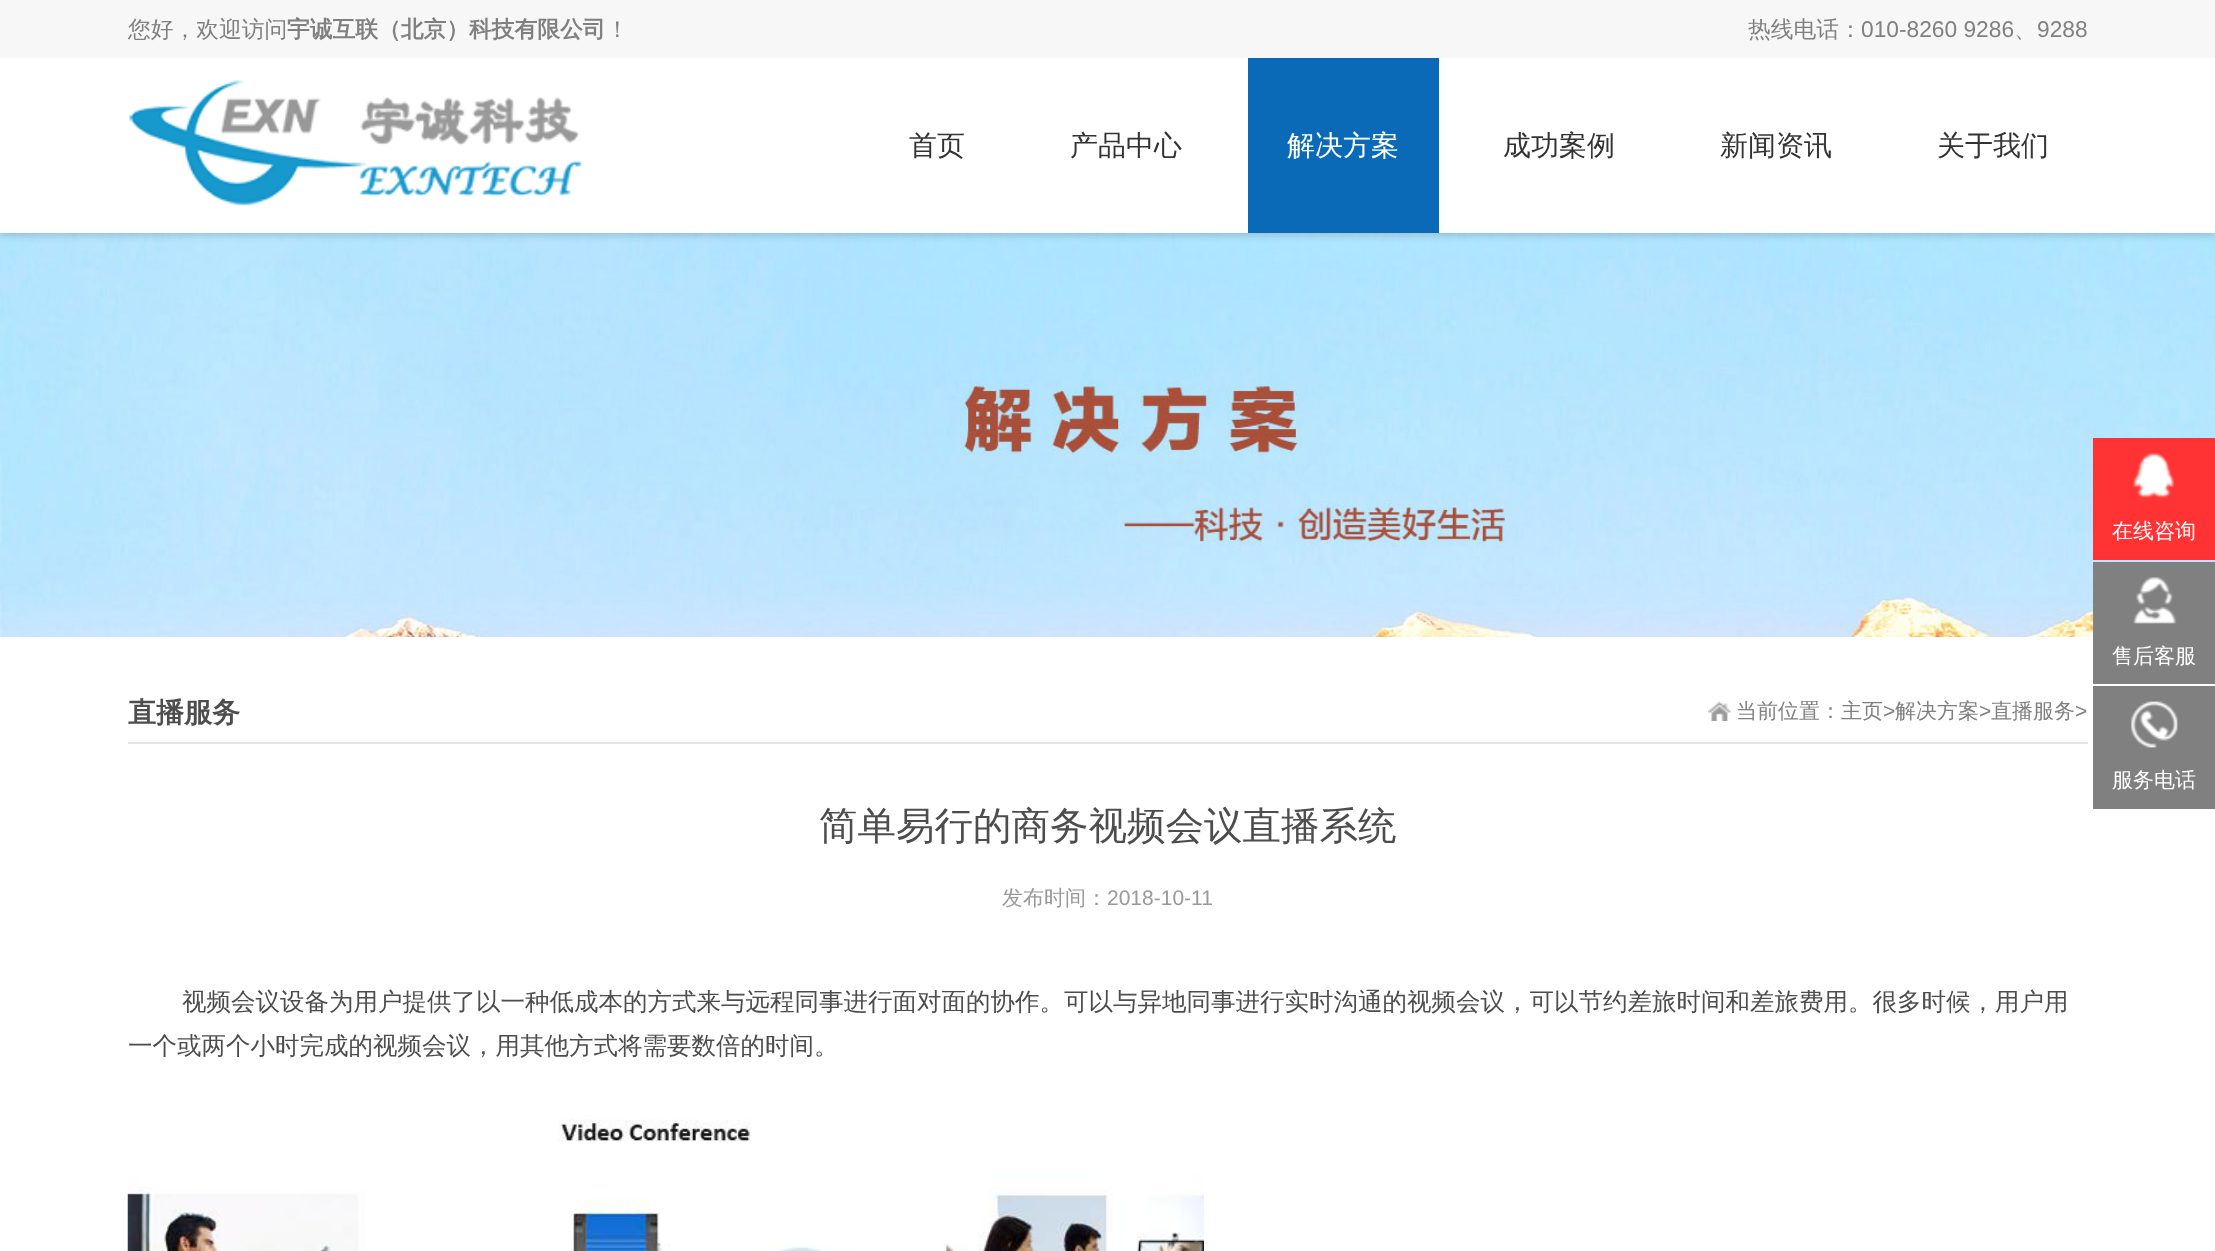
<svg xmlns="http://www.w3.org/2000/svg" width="2215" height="1251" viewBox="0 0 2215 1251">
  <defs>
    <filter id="blur1" x="-50%" y="-200%" width="200%" height="500%"><feGaussianBlur stdDeviation="3.5"/></filter>
  </defs>
  <rect width="100%" height="100%" fill="#ffffff"/>
  <image x="0" y="233" width="2215" height="404" href="img2.png"/>
  <rect x="0" y="61" width="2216" height="175" fill="#000000" fill-opacity="0.15" filter="url(#blur1)"/>
  <rect x="0" y="0" width="2215" height="58" fill="#f7f7f7"/>
  <text x="128" y="37" font-family="WenQuanYi Zen Hei" font-size="22.75" font-weight="500" fill="#808080">您好，欢迎访问</text>
  <text x="287" y="37" font-family="WenQuanYi Zen Hei" font-size="22.75" font-weight="bold" fill="#808080">宇诚互联（北京）科技有限公司</text>
  <text x="606" y="37" font-family="WenQuanYi Zen Hei" font-size="22.75" font-weight="500" fill="#808080">！</text>
  <text x="1748" y="37" font-family="WenQuanYi Zen Hei" font-size="22.75" font-weight="500" fill="#808080">热线电话：</text>
  <text x="1861" y="37" font-family="Liberation Sans" font-size="22.75" fill="#808080">010-8260 9286</text>
  <text x="2014" y="37" font-family="WenQuanYi Zen Hei" font-size="22.75" font-weight="500" fill="#808080">、</text>
  <text x="2037" y="37" font-family="Liberation Sans" font-size="22.75" fill="#808080">9288</text>
  <rect x="0" y="58" width="2215" height="175" fill="#ffffff"/>
  <image x="129" y="80" width="453" height="126" href="img1.png"/>
  <text x="909" y="155" font-family="WenQuanYi Zen Hei" font-size="28" font-weight="500" fill="#333333">首页</text>
  <text x="1070" y="155" font-family="WenQuanYi Zen Hei" font-size="28" font-weight="500" fill="#333333">产品中心</text>
  <rect x="1248" y="58" width="191" height="175" fill="#0b6ab8"/>
  <text x="1287" y="155" font-family="WenQuanYi Zen Hei" font-size="28" font-weight="500" fill="#ffffff">解决方案</text>
  <text x="1503" y="155" font-family="WenQuanYi Zen Hei" font-size="28" font-weight="500" fill="#333333">成功案例</text>
  <text x="1720" y="155" font-family="WenQuanYi Zen Hei" font-size="28" font-weight="500" fill="#333333">新闻资讯</text>
  <text x="1937" y="155" font-family="WenQuanYi Zen Hei" font-size="28" font-weight="500" fill="#333333">关于我们</text>
  <rect x="128" y="742" width="1960" height="2" fill="#e5e5e5"/>
  <text x="128" y="722" font-family="WenQuanYi Zen Hei" font-size="28" font-weight="bold" fill="#4d4d4d">直播服务</text>
  <image x="1708" y="701" width="23" height="20" href="img3.png"/>
  <text x="1736" y="718" font-family="WenQuanYi Zen Hei" font-size="21" font-weight="500" fill="#808080">当前位置：主页</text>
  <text x="1883" y="718" font-family="Liberation Sans" font-size="21" fill="#808080">&gt;</text>
  <text x="1895" y="718" font-family="WenQuanYi Zen Hei" font-size="21" font-weight="500" fill="#808080">解决方案</text>
  <text x="1979" y="718" font-family="Liberation Sans" font-size="21" fill="#808080">&gt;</text>
  <text x="1991" y="718" font-family="WenQuanYi Zen Hei" font-size="21" font-weight="500" fill="#808080">直播服务</text>
  <text x="2075" y="718" font-family="Liberation Sans" font-size="21" fill="#808080">&gt;</text>
  <text x="819" y="839" font-family="WenQuanYi Zen Hei" font-size="38.5" font-weight="500" fill="#4d4d4d">简单易行的商务视频会议直播系统</text>
  <text x="1002" y="905" font-family="WenQuanYi Zen Hei" font-size="21" font-weight="500" fill="#999999">发布时间：</text>
  <text x="1107" y="905" font-family="Liberation Sans" font-size="21" fill="#999999">2018-10-11</text>
  <text x="182" y="1010" font-family="WenQuanYi Zen Hei" font-size="24.5" font-weight="500" fill="#4d4d4d">视频会议设备为用户提供了以一种低成本的方式来与远程同事进行面对面的协作。可以与异地同事进行实时沟通的视频会议，可以节约差旅时间和差旅费用。很多时候，用户用</text>
  <text x="128" y="1054" font-family="WenQuanYi Zen Hei" font-size="24.5" font-weight="500" fill="#4d4d4d">一个或两个小时完成的视频会议，用其他方式将需要数倍的时间。</text>
  <image x="127" y="1119" width="1077" height="132" href="img4.png"/>
  <rect x="2093" y="438" width="122" height="122" fill="#ff3333"/>
  <image x="2132" y="453" width="43" height="45" href="img5.png"/>
  <text x="2112" y="538" font-family="WenQuanYi Zen Hei" font-size="21" font-weight="500" fill="#ffffff">在线咨询</text>
  <rect x="2093" y="562" width="122" height="122" fill="#808080"/>
  <image x="2133" y="577" width="44" height="47" href="img6.png"/>
  <text x="2112" y="663" font-family="WenQuanYi Zen Hei" font-size="21" font-weight="500" fill="#ffffff">售后客服</text>
  <rect x="2093" y="686" width="122" height="123" fill="#808080"/>
  <image x="2130" y="701" width="48" height="47" href="img7.png"/>
  <text x="2112" y="787" font-family="WenQuanYi Zen Hei" font-size="21" font-weight="500" fill="#ffffff">服务电话</text>
</svg>
